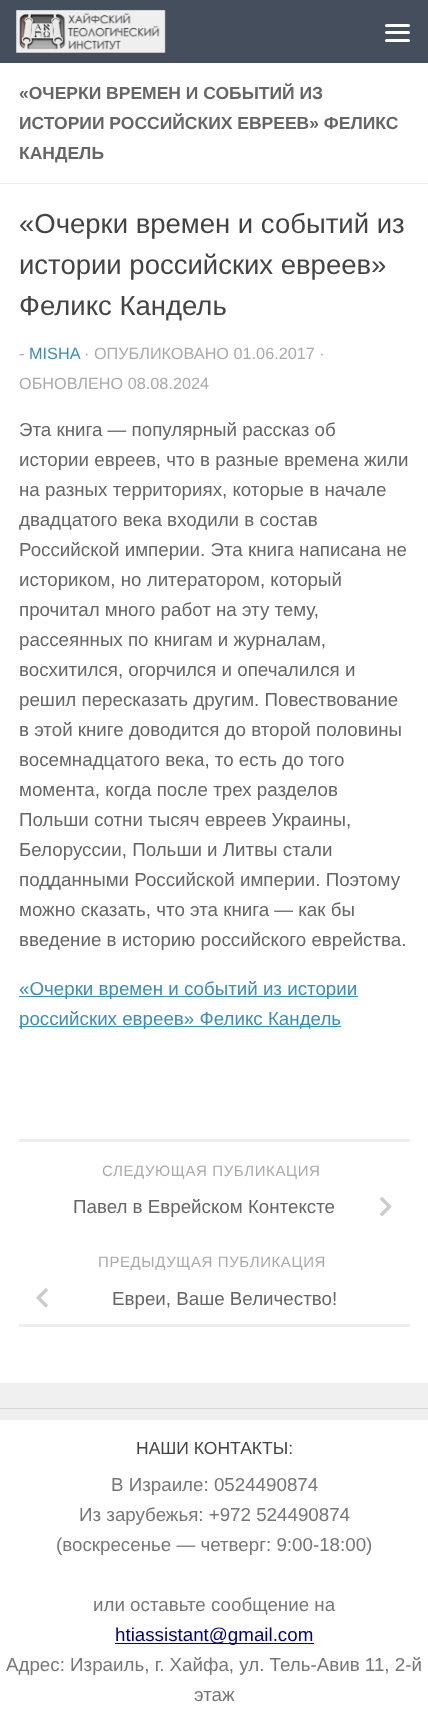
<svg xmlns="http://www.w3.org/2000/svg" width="428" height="1735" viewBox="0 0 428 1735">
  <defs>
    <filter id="blur1" x="-50%" y="-200%" width="200%" height="500%"><feGaussianBlur stdDeviation="0.5"/></filter>
  </defs>
  <rect width="100%" height="100%" fill="#efefef"/>
  <rect x="0" y="64" width="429" height="1345" fill="#000000" fill-opacity="0.1" filter="url(#blur1)"/>
  <rect x="0" y="0" width="428" height="63" fill="#454e5c"/>
  <image x="16" y="10" width="150" height="43" href="img1.png"/>
  <rect x="385" y="24" width="25" height="3" rx="1.5" fill="#ffffff"/>
  <rect x="385" y="31" width="25" height="3" rx="1.5" fill="#ffffff"/>
  <rect x="385" y="39" width="25" height="3" rx="1.5" fill="#ffffff"/>
  <rect x="0" y="63" width="428" height="1320" fill="#ffffff"/>
  <rect x="0" y="183" width="428" height="1" fill="#eeeeee"/>
  <text x="19" y="99" font-family="Liberation Sans" font-size="17.5" font-weight="bold" fill="#666666">«ОЧЕРКИ ВРЕМЕН И СОБЫТИЙ ИЗ</text>
  <text x="19" y="129" font-family="Liberation Sans" font-size="17.5" font-weight="bold" fill="#666666">ИСТОРИИ РОССИЙСКИХ ЕВРЕЕВ» ФЕЛИКС</text>
  <text x="19" y="159" font-family="Liberation Sans" font-size="17.5" font-weight="bold" fill="#666666">КАНДЕЛЬ</text>
  <text x="19" y="233" font-family="Liberation Sans" font-size="27.5" fill="#444444">«Очерки времен и событий из</text>
  <text x="19" y="274" font-family="Liberation Sans" font-size="27.5" fill="#444444">истории российских евреев»</text>
  <text x="19" y="315" font-family="Liberation Sans" font-size="27.5" fill="#444444">Феликс Кандель</text>
  <text x="19" y="359" font-family="Liberation Sans" font-size="16.25" fill="#aaaaaa">-</text>
  <text x="29" y="359" font-family="Liberation Sans" font-size="16.25" fill="#3b8dbd">MISHA</text>
  <text x="84" y="359" font-family="Liberation Sans" font-size="16.25" fill="#aaaaaa">· ОПУБЛИКОВАНО 01.06.2017 ·</text>
  <text x="19" y="389" font-family="Liberation Sans" font-size="16.25" fill="#aaaaaa">ОБНОВЛЕНО 08.08.2024</text>
  <text x="19" y="436" font-family="Liberation Sans" font-size="18.75" fill="#666666">Эта книга — популярный рассказ об</text>
  <text x="19" y="466" font-family="Liberation Sans" font-size="18.75" fill="#666666">истории евреев, что в разные времена жили</text>
  <text x="19" y="496" font-family="Liberation Sans" font-size="18.75" fill="#666666">на разных территориях, которые в начале</text>
  <text x="19" y="526" font-family="Liberation Sans" font-size="18.75" fill="#666666">двадцатого века входили в состав</text>
  <text x="19" y="556" font-family="Liberation Sans" font-size="18.75" fill="#666666">Российской империи. Эта книга написана не</text>
  <text x="19" y="586" font-family="Liberation Sans" font-size="18.75" fill="#666666">историком, но литератором, который</text>
  <text x="19" y="616" font-family="Liberation Sans" font-size="18.75" fill="#666666">прочитал много работ на эту тему,</text>
  <text x="19" y="646" font-family="Liberation Sans" font-size="18.75" fill="#666666">рассеянных по книгам и журналам,</text>
  <text x="19" y="676" font-family="Liberation Sans" font-size="18.75" fill="#666666">восхитился, огорчился и опечалился и</text>
  <text x="19" y="706" font-family="Liberation Sans" font-size="18.75" fill="#666666">решил пересказать другим. Повествование</text>
  <text x="19" y="736" font-family="Liberation Sans" font-size="18.75" fill="#666666">в этой книге доводится до второй половины</text>
  <text x="19" y="766" font-family="Liberation Sans" font-size="18.75" fill="#666666">восемнадцатого века, то есть до того</text>
  <text x="19" y="796" font-family="Liberation Sans" font-size="18.75" fill="#666666">момента, когда после трех разделов</text>
  <text x="19" y="826" font-family="Liberation Sans" font-size="18.75" fill="#666666">Польши сотни тысяч евреев Украины,</text>
  <text x="19" y="856" font-family="Liberation Sans" font-size="18.75" fill="#666666">Белоруссии, Польши и Литвы стали</text>
  <text x="19" y="886" font-family="Liberation Sans" font-size="18.75" fill="#666666">подданными Российской империи. Поэтому</text>
  <text x="19" y="916" font-family="Liberation Sans" font-size="18.75" fill="#666666">можно сказать, что эта книга — как бы</text>
  <text x="19" y="946" font-family="Liberation Sans" font-size="18.75" fill="#666666">введение в историю российского еврейства.</text>
  <rect x="19" y="996" width="339" height="1" fill="#3b8dbd"/>
  <text x="19" y="995" font-family="Liberation Sans" font-size="18.75" fill="#3b8dbd">«Очерки времен и событий из истории</text>
  <rect x="19" y="1026" width="322" height="1" fill="#3b8dbd"/>
  <text x="19" y="1025" font-family="Liberation Sans" font-size="18.75" fill="#3b8dbd">российских евреев» Феликс Кандель</text>
  <rect x="19" y="1139" width="391" height="3" fill="#eeeeee"/>
  <rect x="19" y="1324" width="391" height="3" fill="#eeeeee"/>
  <text x="102" y="1176" font-family="Liberation Sans" font-size="15" letter-spacing="0.6" fill="#aaaaaa">СЛЕДУЮЩАЯ ПУБЛИКАЦИЯ</text>
  <text x="73" y="1213" font-family="Liberation Sans" font-size="18.75" fill="#666666">Павел в Еврейском Контексте</text>
  <image x="380" y="1197" width="12" height="19" href="img2.png"/>
  <text x="98" y="1267" font-family="Liberation Sans" font-size="15" letter-spacing="0.6" fill="#aaaaaa">ПРЕДЫДУЩАЯ ПУБЛИКАЦИЯ</text>
  <image x="36" y="1288" width="12" height="20" href="img3.png"/>
  <text x="112" y="1305" font-family="Liberation Sans" font-size="18.75" fill="#666666">Евреи, Ваше Величество!</text>
  <rect x="0" y="1383" width="428" height="25" fill="#f0f0f0"/>
  <rect x="0" y="1420" width="428" height="315" fill="#ffffff"/>
  <text x="136" y="1454" font-family="Liberation Sans" font-size="17.5" fill="#444444">НАШИ КОНТАКТЫ:</text>
  <text x="111" y="1491" font-family="Liberation Sans" font-size="18.75" fill="#777777">В Израиле: 0524490874</text>
  <text x="79" y="1521" font-family="Liberation Sans" font-size="18.75" fill="#777777">Из зарубежья: +972 524490874</text>
  <text x="56" y="1551" font-family="Liberation Sans" font-size="18.75" fill="#777777">(воскресенье — четверг: 9:00-18:00)</text>
  <text x="93" y="1611" font-family="Liberation Sans" font-size="18.75" fill="#777777">или оставьте сообщение на</text>
  <rect x="115" y="1643" width="199" height="1" fill="#000080"/>
  <text x="115" y="1641" font-family="Liberation Sans" font-size="18.75" fill="#000080">htiassistant@gmail.com</text>
  <text x="6" y="1671" font-family="Liberation Sans" font-size="18.75" fill="#777777">Адрес: Израиль, г. Хайфа, ул. Тель-Авив 11, 2-й</text>
  <text x="194" y="1701" font-family="Liberation Sans" font-size="18.75" fill="#777777">этаж</text>
</svg>
